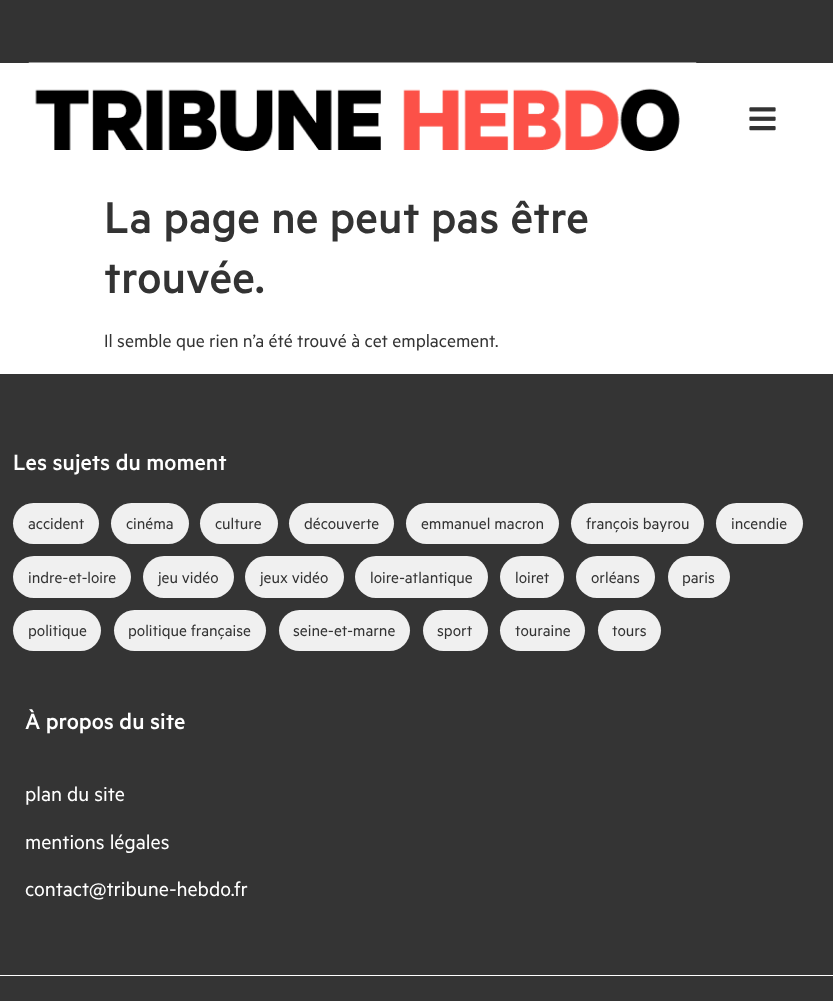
<svg xmlns="http://www.w3.org/2000/svg" width="833" height="1001" viewBox="0 0 833 1001">
  <rect width="100%" height="100%" fill="#ffffff"/>
  <rect x="0" y="0" width="833" height="63" fill="#333333"/>
  <image x="28" y="62" width="669" height="89" href="img1.png"/>
  <image x="749" y="107" width="27" height="24" href="img2.png"/>
  <text x="104" y="233" font-family="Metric" font-size="50" font-weight="500" fill="#333333">La page ne peut pas être</text>
  <text x="104" y="293" font-family="Metric" font-size="50" font-weight="500" fill="#333333">trouvée.</text>
  <text x="104" y="347" font-family="Metric" font-size="20" fill="#333333">Il semble que rien n’a été trouvé à cet emplacement.</text>
  <rect x="0" y="374" width="833" height="627" fill="#343434"/>
  <text x="13" y="470" font-family="Metric" font-size="25" font-weight="500" fill="#ffffff">Les sujets du moment</text>
  <rect x="13" y="503" width="86" height="41" rx="20.5" fill="#f0f0f0"/>
  <text x="28" y="529" font-family="Metric" font-size="17.5" fill="#333333">accident</text>
  <rect x="111" y="503" width="78" height="41" rx="20.5" fill="#f0f0f0"/>
  <text x="126" y="529" font-family="Metric" font-size="17.5" fill="#333333">cinéma</text>
  <rect x="200" y="503" width="78" height="41" rx="20.5" fill="#f0f0f0"/>
  <text x="215" y="529" font-family="Metric" font-size="17.5" fill="#333333">culture</text>
  <rect x="289" y="503" width="105" height="41" rx="20.5" fill="#f0f0f0"/>
  <text x="304" y="529" font-family="Metric" font-size="17.5" fill="#333333">découverte</text>
  <rect x="406" y="503" width="153" height="41" rx="20.5" fill="#f0f0f0"/>
  <text x="421" y="529" font-family="Metric" font-size="17.5" fill="#333333">emmanuel macron</text>
  <rect x="571" y="503" width="133" height="41" rx="20.5" fill="#f0f0f0"/>
  <text x="586" y="529" font-family="Metric" font-size="17.5" fill="#333333">françois bayrou</text>
  <rect x="716" y="503" width="87" height="41" rx="20.5" fill="#f0f0f0"/>
  <text x="731" y="529" font-family="Metric" font-size="17.5" fill="#333333">incendie</text>
  <rect x="13" y="556" width="118" height="42" rx="21" fill="#f0f0f0"/>
  <text x="28" y="583" font-family="Metric" font-size="17.5" fill="#333333">indre-et-loire</text>
  <rect x="143" y="556" width="91" height="42" rx="21" fill="#f0f0f0"/>
  <text x="158" y="583" font-family="Metric" font-size="17.5" fill="#333333">jeu vidéo</text>
  <rect x="245" y="556" width="99" height="42" rx="21" fill="#f0f0f0"/>
  <text x="260" y="583" font-family="Metric" font-size="17.5" fill="#333333">jeux vidéo</text>
  <rect x="355" y="556" width="133" height="42" rx="21" fill="#f0f0f0"/>
  <text x="370" y="583" font-family="Metric" font-size="17.5" fill="#333333">loire-atlantique</text>
  <rect x="500" y="556" width="64" height="42" rx="21" fill="#f0f0f0"/>
  <text x="515" y="583" font-family="Metric" font-size="17.5" fill="#333333">loiret</text>
  <rect x="576" y="556" width="79" height="42" rx="21" fill="#f0f0f0"/>
  <text x="591" y="583" font-family="Metric" font-size="17.5" fill="#333333">orléans</text>
  <rect x="668" y="556" width="62" height="42" rx="21" fill="#f0f0f0"/>
  <text x="682" y="583" font-family="Metric" font-size="17.5" fill="#333333">paris</text>
  <rect x="13" y="610" width="88" height="41" rx="20.5" fill="#f0f0f0"/>
  <text x="28" y="636" font-family="Metric" font-size="17.5" fill="#333333">politique</text>
  <rect x="114" y="610" width="152" height="41" rx="20.5" fill="#f0f0f0"/>
  <text x="128" y="636" font-family="Metric" font-size="17.5" fill="#333333">politique française</text>
  <rect x="279" y="610" width="131" height="41" rx="20.5" fill="#f0f0f0"/>
  <text x="293" y="636" font-family="Metric" font-size="17.5" fill="#333333">seine-et-marne</text>
  <rect x="423" y="610" width="65" height="41" rx="20.5" fill="#f0f0f0"/>
  <text x="437" y="636" font-family="Metric" font-size="17.5" fill="#333333">sport</text>
  <rect x="500" y="610" width="85" height="41" rx="20.5" fill="#f0f0f0"/>
  <text x="515" y="636" font-family="Metric" font-size="17.5" fill="#333333">touraine</text>
  <rect x="598" y="610" width="63" height="41" rx="20.5" fill="#f0f0f0"/>
  <text x="612" y="636" font-family="Metric" font-size="17.5" fill="#333333">tours</text>
  <text x="25" y="729" font-family="Metric" font-size="25" font-weight="500" fill="#ffffff">À propos du site</text>
  <text x="25" y="801" font-family="Metric" font-size="22.5" fill="#ffffff">plan du site</text>
  <text x="25" y="849" font-family="Metric" font-size="22.5" fill="#ffffff">mentions légales</text>
  <text x="25" y="896" font-family="Metric" font-size="22.5" fill="#ffffff">contact@tribune-hebdo.fr</text>
  <rect x="0" y="975" width="833" height="1" fill="#ffffff"/>
</svg>
